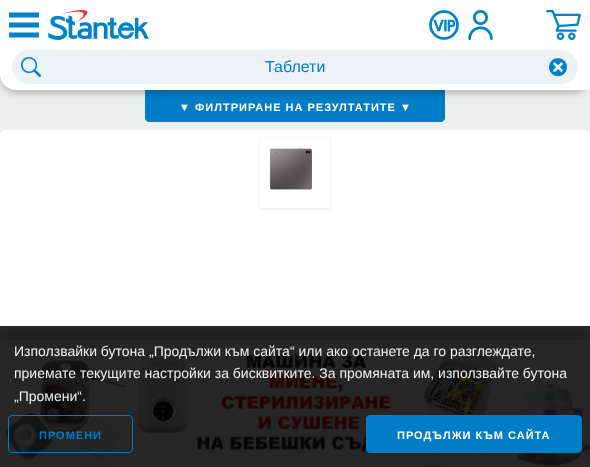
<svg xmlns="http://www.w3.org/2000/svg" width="590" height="467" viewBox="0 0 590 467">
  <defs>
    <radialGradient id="g1" gradientUnits="userSpaceOnUse" cx="295" cy="1010" r="1052"><stop offset="0" stop-color="#fdfbfb"/><stop offset="1" stop-color="#ebedee"/></radialGradient>
    <filter id="blur1" x="-50%" y="-200%" width="200%" height="500%"><feGaussianBlur stdDeviation="3"/></filter>
    <clipPath id="clip1"><path d="M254 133H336V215H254ZM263 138H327C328.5 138 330 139.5 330 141V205C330 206.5 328.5 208 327 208H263C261.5 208 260 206.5 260 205V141C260 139.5 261.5 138 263 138Z" clip-rule="evenodd"/></clipPath>
    <filter id="blur2" x="-50%" y="-200%" width="200%" height="500%"><feGaussianBlur stdDeviation="1.5"/></filter>
    <clipPath id="clip2"><rect x="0" y="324" width="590" height="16"/></clipPath>
    <filter id="blur3" x="-50%" y="-200%" width="200%" height="500%"><feGaussianBlur stdDeviation="6.5"/></filter>
  </defs>
  <rect width="100%" height="100%" fill="#ffffff"/>
  <rect x="0" y="74" width="590" height="61" fill="url(#g1)"/>
  <path d="M145.5 90.5H444.5V118C444.5 120 443 121.5 441 121.5H149C147 121.5 145.5 120 145.5 118Z" fill="#007dc6" stroke="#007dc6"/>
  <rect x="0" y="4" width="590" height="90" rx="16" fill="#000000" fill-opacity="0.2" filter="url(#blur1)"/>
  <path d="M0 0H590V87C590 88.5 588.5 90 587 90H16C7 90 0 83 0 74Z" fill="#ffffff"/>
  <image x="9" y="12" width="30" height="26" href="img1.png"/>
  <image x="48" y="10" width="101" height="30" href="img2.png"/>
  <image x="429" y="10" width="30" height="30" href="img3.png"/>
  <image x="468" y="10" width="25" height="30" href="img4.png"/>
  <image x="546" y="10" width="35" height="30" href="img5.png"/>
  <rect x="12" y="50" width="566" height="34" rx="17" fill="#ecf2f6"/>
  <image x="21" y="57" width="20" height="20" href="img6.png"/>
  <text x="265" y="72" font-family="Liberation Sans" font-size="16" fill="#007dc6">Таблети</text>
  <image x="549" y="58" width="18" height="19" href="img7.png"/>
  <text x="179" y="111" font-family="Liberation Sans" font-size="11" font-weight="bold" letter-spacing="1" fill="#ffffff">▼ ФИЛТРИРАНЕ НА РЕЗУЛТАТИТЕ ▼</text>
  <rect x="0" y="130" width="590" height="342" rx="5" fill="#ffffff"/>
  <g clip-path="url(#clip1)">
    <rect x="260" y="139" width="70" height="70" rx="3" fill="#000000" fill-opacity="0.1" filter="url(#blur2)"/>
  </g>
  <image x="270" y="148" width="42" height="42" href="img8.png"/>
  <image x="82" y="466" width="407" height="1" href="img9.png"/>
  <g clip-path="url(#clip2)">
    <rect x="0" y="332" width="590" height="127" fill="#000000" fill-opacity="0.2" filter="url(#blur3)"/>
  </g>
  <image x="5" y="346" width="585" height="121" href="img10.png"/>
  <rect x="0" y="326" width="590" height="141" fill="#000000" fill-opacity="0.85"/>
  <text x="14" y="356" font-family="Liberation Sans" font-size="14" fill="#efefef">Използвайки бутона „Продължи към сайта“ или ако останете да го разглеждате,</text>
  <text x="14" y="378" font-family="Liberation Sans" font-size="14" fill="#efefef">приемате текущите настройки за бисквитките. За промяната им, използвайте бутона</text>
  <text x="14" y="401" font-family="Liberation Sans" font-size="14" fill="#efefef">„Промени“.</text>
  <rect x="8.5" y="415.5" width="124" height="37" rx="3.5" fill="none" stroke="#007dc6"/>
  <text x="39" y="439" font-family="Liberation Sans" font-size="11" font-weight="bold" letter-spacing="1" fill="#007dc6">ПРОМЕНИ</text>
  <rect x="366.5" y="415.5" width="215" height="37" rx="3.5" fill="#007dc6" stroke="#007dc6"/>
  <text x="397" y="439" font-family="Liberation Sans" font-size="11" font-weight="bold" letter-spacing="1" fill="#ffffff">ПРОДЪЛЖИ КЪМ САЙТА</text>
</svg>
